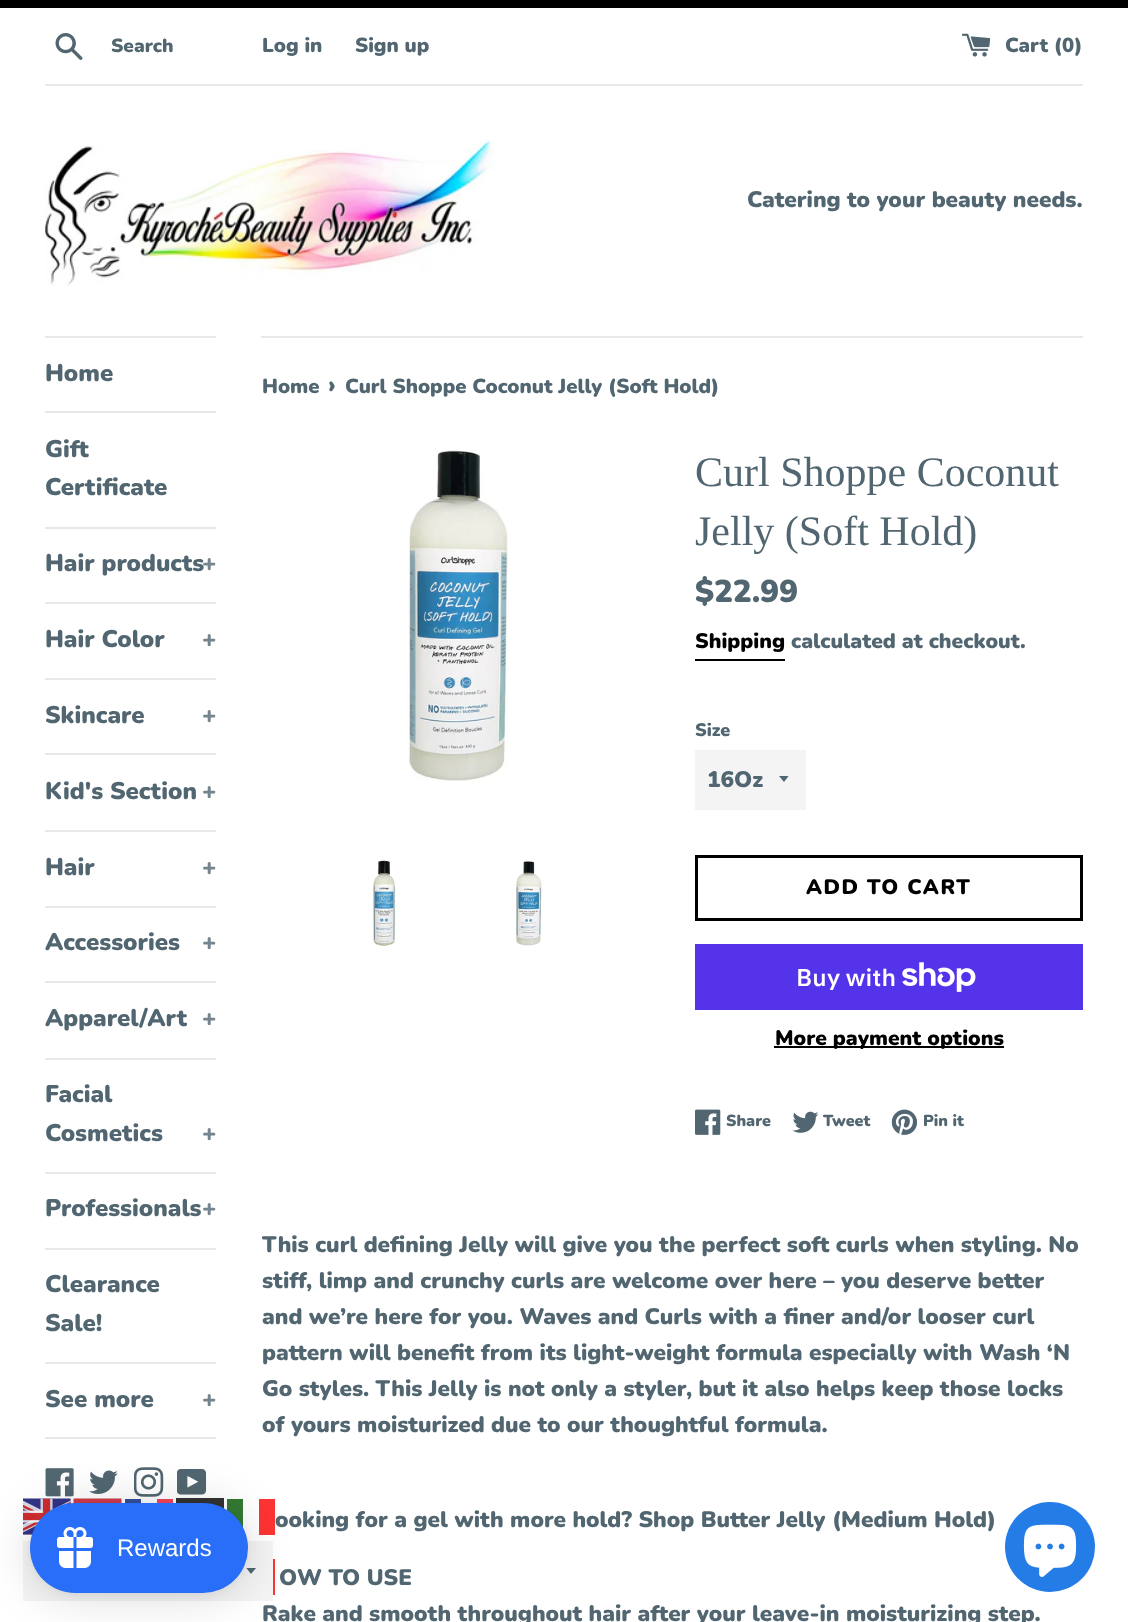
<svg xmlns="http://www.w3.org/2000/svg" width="1128" height="1622" viewBox="0 0 1128 1622">
  <defs>
    <clipPath id="clip1"><rect x="779" y="776" width="12" height="7"/></clipPath>
    <clipPath id="clip2"><rect x="246" y="1568" width="12" height="7"/></clipPath>
    <filter id="blur1" x="-50%" y="-200%" width="200%" height="500%"><feGaussianBlur stdDeviation="22.5"/></filter>
    <filter id="blur2" x="-50%" y="-200%" width="200%" height="500%"><feGaussianBlur stdDeviation="4.5"/></filter>
  </defs>
  <rect width="100%" height="100%" fill="#ffffff"/>
  <rect x="0" y="0" width="1128" height="8" fill="#000000"/>
  <image x="55" y="33" width="28" height="27" href="img1.png"/>
  <text x="111" y="52" font-family="Nunito" font-size="19" font-weight="900" fill="#516670">Search</text>
  <text x="262" y="52" font-family="Nunito" font-size="20.25" font-weight="900" fill="#516670">Log in</text>
  <text x="355" y="52" font-family="Nunito" font-size="20.25" font-weight="900" fill="#516670">Sign up</text>
  <image x="962" y="33" width="29" height="24" href="img2.png"/>
  <text x="1005" y="52" font-family="Nunito" font-size="20.25" font-weight="900" fill="#516670">Cart (0)</text>
  <rect x="45" y="84" width="1038" height="2" fill="#e8e8e8"/>
  <image x="45" y="140" width="450" height="146" href="img3.png"/>
  <text x="747" y="207" font-family="Nunito" font-size="22.5" font-weight="900" fill="#516670">Catering to your beauty needs.</text>
  <rect x="45" y="336" width="171" height="2" fill="#e8e8e8"/>
  <rect x="45" y="411" width="171" height="2" fill="#e8e8e8"/>
  <text x="45" y="381" font-family="Nunito" font-size="24" font-weight="900" fill="#516670">Home</text>
  <rect x="45" y="527" width="171" height="2" fill="#e8e8e8"/>
  <text x="45" y="457" font-family="Nunito" font-size="24" font-weight="900" fill="#516670">Gift</text>
  <text x="45" y="495" font-family="Nunito" font-size="24" font-weight="900" fill="#516670">Certificate</text>
  <rect x="45" y="602" width="171" height="2" fill="#e8e8e8"/>
  <text x="45" y="571" font-family="Nunito" font-size="24" font-weight="900" fill="#516670">Hair products</text>
  <text x="202" y="571" font-family="Nunito" font-size="24" font-weight="900" fill="#74858d">+</text>
  <rect x="45" y="678" width="171" height="2" fill="#e8e8e8"/>
  <text x="45" y="647" font-family="Nunito" font-size="24" font-weight="900" fill="#516670">Hair Color</text>
  <text x="202" y="647" font-family="Nunito" font-size="24" font-weight="900" fill="#74858d">+</text>
  <rect x="45" y="753" width="171" height="2" fill="#e8e8e8"/>
  <text x="45" y="723" font-family="Nunito" font-size="24" font-weight="900" fill="#516670">Skincare</text>
  <text x="202" y="723" font-family="Nunito" font-size="24" font-weight="900" fill="#74858d">+</text>
  <rect x="45" y="830" width="171" height="2" fill="#e8e8e8"/>
  <text x="45" y="799" font-family="Nunito" font-size="24" font-weight="900" fill="#516670">Kid's Section</text>
  <text x="202" y="799" font-family="Nunito" font-size="24" font-weight="900" fill="#74858d">+</text>
  <rect x="45" y="906" width="171" height="2" fill="#e8e8e8"/>
  <text x="45" y="875" font-family="Nunito" font-size="24" font-weight="900" fill="#516670">Hair</text>
  <text x="202" y="875" font-family="Nunito" font-size="24" font-weight="900" fill="#74858d">+</text>
  <rect x="45" y="981" width="171" height="2" fill="#e8e8e8"/>
  <text x="45" y="950" font-family="Nunito" font-size="24" font-weight="900" fill="#516670">Accessories</text>
  <text x="202" y="950" font-family="Nunito" font-size="24" font-weight="900" fill="#74858d">+</text>
  <rect x="45" y="1058" width="171" height="2" fill="#e8e8e8"/>
  <text x="45" y="1026" font-family="Nunito" font-size="24" font-weight="900" fill="#516670">Apparel/Art</text>
  <text x="202" y="1026" font-family="Nunito" font-size="24" font-weight="900" fill="#74858d">+</text>
  <rect x="45" y="1172" width="171" height="2" fill="#e8e8e8"/>
  <text x="45" y="1102" font-family="Nunito" font-size="24" font-weight="900" fill="#516670">Facial</text>
  <text x="45" y="1141" font-family="Nunito" font-size="24" font-weight="900" fill="#516670">Cosmetics</text>
  <text x="202" y="1141" font-family="Nunito" font-size="24" font-weight="900" fill="#74858d">+</text>
  <rect x="45" y="1248" width="171" height="2" fill="#e8e8e8"/>
  <text x="45" y="1216" font-family="Nunito" font-size="24" font-weight="900" fill="#516670">Professionals</text>
  <text x="202" y="1216" font-family="Nunito" font-size="24" font-weight="900" fill="#74858d">+</text>
  <rect x="45" y="1362" width="171" height="2" fill="#e8e8e8"/>
  <text x="45" y="1292" font-family="Nunito" font-size="24" font-weight="900" fill="#516670">Clearance</text>
  <text x="45" y="1331" font-family="Nunito" font-size="24" font-weight="900" fill="#516670">Sale!</text>
  <rect x="45" y="1437" width="171" height="2" fill="#e8e8e8"/>
  <text x="45" y="1407" font-family="Nunito" font-size="24" font-weight="900" fill="#516670">See more</text>
  <text x="202" y="1407" font-family="Nunito" font-size="24" font-weight="900" fill="#74858d">+</text>
  <image x="45" y="1468" width="29" height="29" href="img4.png"/>
  <image x="89" y="1470" width="29" height="24" href="img5.png"/>
  <image x="134" y="1467" width="30" height="30" href="img6.png"/>
  <image x="177" y="1469" width="30" height="26" href="img7.png"/>
  <rect x="261" y="336" width="822" height="2" fill="#e8e8e8"/>
  <text x="262" y="393" font-family="Nunito" font-size="20.25" font-weight="900" fill="#516670">Home</text>
  <text x="328" y="393" font-family="Nunito" font-size="25" font-weight="900" fill="#516670">›</text>
  <text x="345" y="393" font-family="Nunito" font-size="20.25" font-weight="900" fill="#516670">Curl Shoppe Coconut Jelly (Soft Hold)</text>
  <image x="406" y="450" width="103" height="331" href="img8.png"/>
  <image x="372" y="859" width="24" height="88" href="img9.png"/>
  <image x="516" y="861" width="27" height="85" href="img10.png"/>
  <text x="695" y="486" font-family="Liberation Serif" font-size="42" fill="#516670">Curl Shoppe Coconut</text>
  <text x="695" y="545" font-family="Liberation Serif" font-size="42" fill="#516670">Jelly (Soft Hold)</text>
  <text x="695" y="602" font-family="Nunito" font-size="31.5" font-weight="900" fill="#516670">$22.99</text>
  <text x="695" y="648" font-family="Nunito" font-size="21" font-weight="900" fill="#000000">Shipping</text>
  <rect x="695" y="659" width="90" height="2" fill="#000000"/>
  <text x="791" y="648" font-family="Nunito" font-size="21" font-weight="900" fill="#516670">calculated at checkout.</text>
  <text x="695" y="736" font-family="Nunito" font-size="18" font-weight="900" fill="#516670">Size</text>
  <rect x="695" y="750" width="111" height="60" fill="#f4f4f4"/>
  <g clip-path="url(#clip1)">
    <path d="M778.5 775.5L784 782L789 775.5Z" fill="#516670"/>
  </g>
  <text x="707" y="787" font-family="Nunito" font-size="22.5" font-weight="900" fill="#516670">16Oz</text>
  <rect x="696.5" y="856.5" width="385" height="63" fill="none" stroke="#000000" stroke-width="3"/>
  <text x="806" y="894" font-family="Nunito" font-size="21" font-weight="900" letter-spacing="1.5" fill="#000000">ADD TO CART</text>
  <rect x="695" y="944" width="388" height="66" fill="#5433eb"/>
  <text x="796" y="986" font-family="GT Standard" font-size="24" font-weight="600" fill="#ffffff">Buy with</text>
  <image x="902" y="962" width="74" height="30" href="img11.png"/>
  <rect x="774" y="1046" width="230" height="2" fill="#000000"/>
  <text x="775" y="1045" font-family="Nunito" font-size="21" font-weight="900" fill="#000000">More payment options</text>
  <image x="695" y="1109" width="26" height="26" href="img12.png"/>
  <text x="726" y="1126" font-family="Nunito" font-size="16" font-weight="900" fill="#516670">Share</text>
  <image x="792" y="1111" width="27" height="22" href="img13.png"/>
  <text x="823" y="1126" font-family="Nunito" font-size="16" font-weight="900" fill="#516670">Tweet</text>
  <image x="891" y="1109" width="27" height="26" href="img14.png"/>
  <text x="923" y="1126" font-family="Nunito" font-size="16" font-weight="900" fill="#516670">Pin it</text>
  <text x="262" y="1252" font-family="Nunito" font-size="22.5" font-weight="900" fill="#516670">This curl defining Jelly will give you the perfect soft curls when styling. No</text>
  <text x="262" y="1288" font-family="Nunito" font-size="22.5" font-weight="900" fill="#516670">stiff, limp and crunchy curls are welcome over here – you deserve better</text>
  <text x="262" y="1324" font-family="Nunito" font-size="22.5" font-weight="900" fill="#516670">and we’re here for you. Waves and Curls with a finer and/or looser curl</text>
  <text x="262" y="1360" font-family="Nunito" font-size="22.5" font-weight="900" fill="#516670">pattern will benefit from its light-weight formula especially with Wash ‘N</text>
  <text x="262" y="1396" font-family="Nunito" font-size="22.5" font-weight="900" fill="#516670">Go styles. This Jelly is not only a styler, but it also helps keep those locks</text>
  <text x="262" y="1432" font-family="Nunito" font-size="22.5" font-weight="900" fill="#516670">of yours moisturized due to our thoughtful formula.</text>
  <text x="275" y="1527" font-family="Nunito" font-size="22.5" font-weight="900" fill="#516670">ooking for a gel with more hold? Shop Butter Jelly (Medium Hold)</text>
  <text x="279" y="1585" font-family="Nunito" font-size="22.5" font-weight="900" fill="#516670">OW TO USE</text>
  <text x="262" y="1621" font-family="Nunito" font-size="22.5" font-weight="900" fill="#516670">Rake and smooth throughout hair after your leave-in moisturizing step.</text>
  <image x="23" y="1498" width="48" height="37" href="img15.png"/>
  <image x="73" y="1498" width="49" height="6" href="img16.png"/>
  <rect x="125" y="1499" width="16" height="4" fill="#335199"/>
  <rect x="157" y="1499" width="16" height="4" fill="#f54659"/>
  <rect x="176" y="1498" width="48" height="11" fill="#333333"/>
  <rect x="227" y="1499" width="16" height="29" fill="#337933"/>
  <rect x="259" y="1499" width="16" height="36" fill="#fc0000" fill-opacity="0.8"/>
  <rect x="23" y="1541" width="250" height="60" fill="#f4f4f4"/>
  <g clip-path="url(#clip2)">
    <path d="M246 1567.5L251 1574L256.5 1567.5Z" fill="#516670"/>
  </g>
  <circle cx="1050" cy="1547" r="45" fill="#247ce7"/>
  <image x="1023" y="1524" width="54" height="53" href="img17.png"/>
  <rect x="273" y="1559" width="2" height="36" fill="#fc0000" fill-opacity="0.8"/>
  <rect x="30" y="1506" width="218" height="90" rx="45" fill="#000000" fill-opacity="0.15" filter="url(#blur1)"/>
  <rect x="30" y="1505" width="218" height="90" rx="45" fill="#000000" fill-opacity="0.05" filter="url(#blur2)"/>
  <rect x="30" y="1503" width="218" height="90" rx="45" fill="#286ef8"/>
  <image x="57" y="1527" width="36" height="41" href="img18.png"/>
  <text x="117" y="1556" font-family="Liberation Sans" font-size="24" fill="#ffffff">Rewards</text>
</svg>
